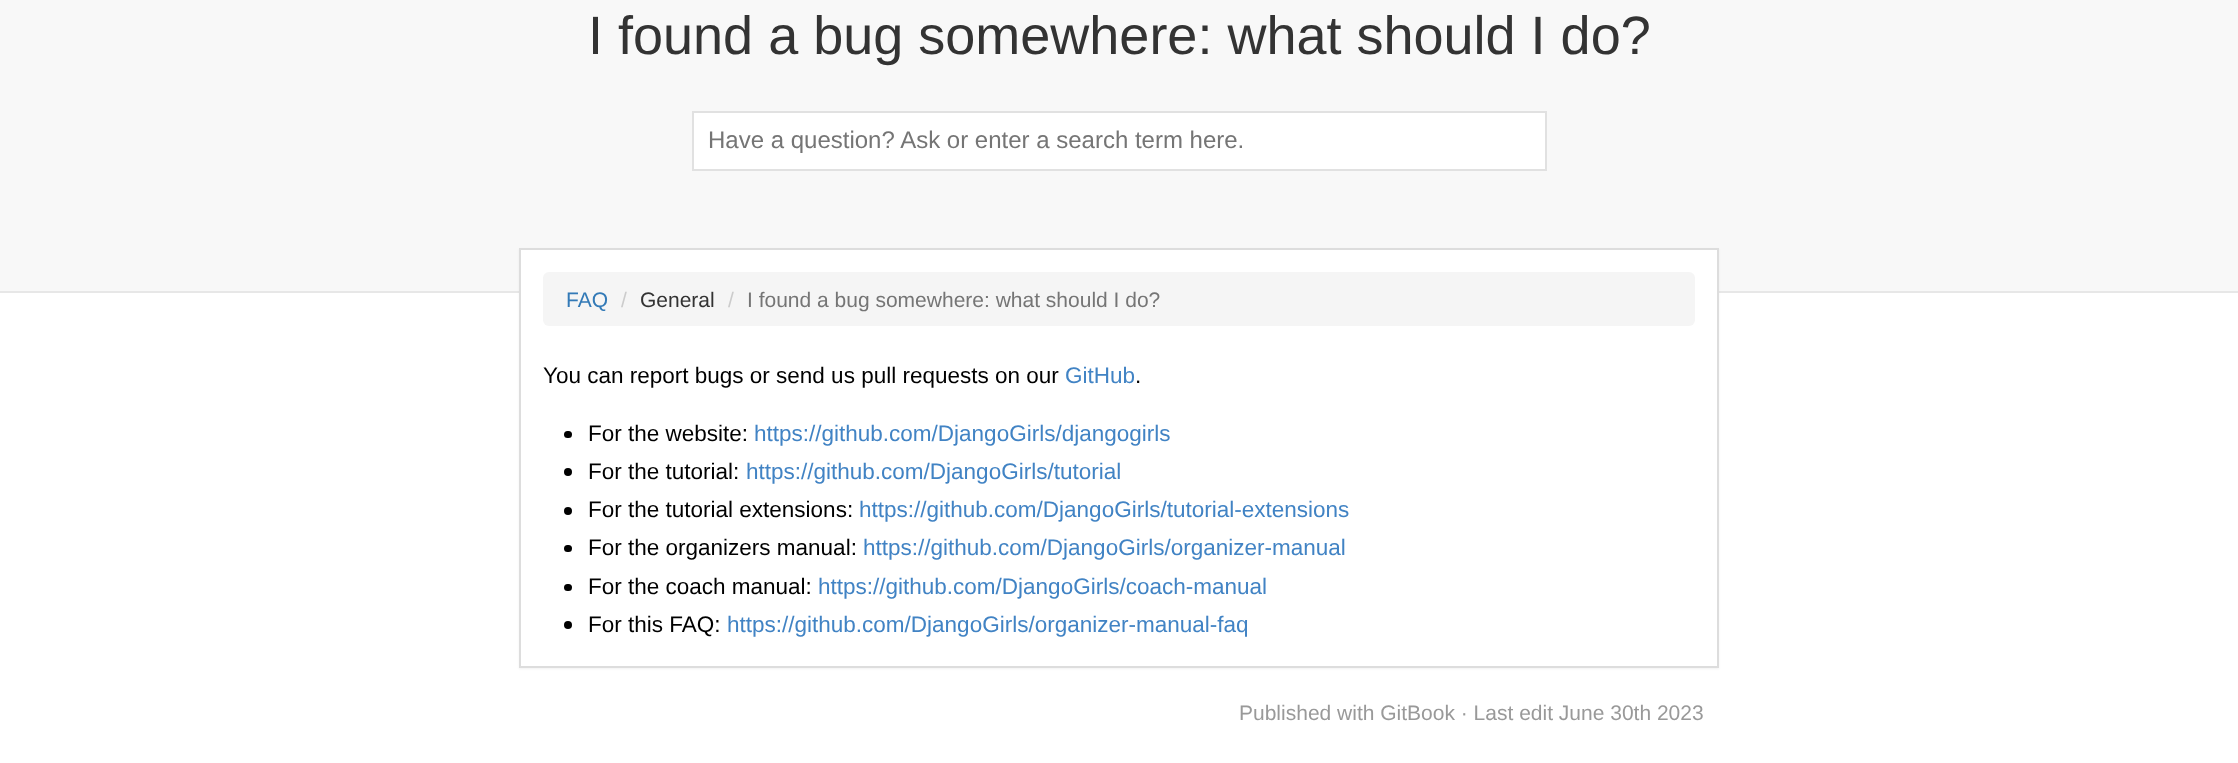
<svg xmlns="http://www.w3.org/2000/svg" width="2238" height="763" viewBox="0 0 2238 763">
  <defs>
    <filter id="blur1" x="-50%" y="-200%" width="200%" height="500%"><feGaussianBlur stdDeviation="1"/></filter>
  </defs>
  <rect width="100%" height="100%" fill="#ffffff"/>
  <rect x="0" y="0" width="2238" height="291" fill="#f8f8f8"/>
  <rect x="0" y="291" width="2238" height="2" fill="#e7e7e7"/>
  <text x="588" y="54" font-family="Liberation Sans" font-size="54" fill="#333333">I found a bug somewhere: what should I do?</text>
  <rect x="693" y="112" width="853" height="58" fill="#ffffff" stroke="#e1e1e1" stroke-width="2"/>
  <text x="708" y="148" font-family="Liberation Sans" font-size="24" fill="#757575">Have a question? Ask or enter a search term here.</text>
  <rect x="519" y="249" width="1200" height="420" fill="#000000" fill-opacity="0.05" filter="url(#blur1)"/>
  <rect x="520" y="249" width="1198" height="418" fill="#ffffff" stroke="#dddddd" stroke-width="2"/>
  <rect x="543" y="272" width="1152" height="54" rx="6" fill="#f5f5f5"/>
  <text x="566" y="307" font-family="Liberation Sans" font-size="21" fill="#337ab7">FAQ</text>
  <text x="621" y="307" font-family="Liberation Sans" font-size="21" fill="#cccccc">/</text>
  <text x="640" y="307" font-family="Liberation Sans" font-size="21" fill="#333333">General</text>
  <text x="728" y="307" font-family="Liberation Sans" font-size="21" fill="#cccccc">/</text>
  <text x="747" y="307" font-family="Liberation Sans" font-size="21" fill="#757575">I found a bug somewhere: what should I do?</text>
  <text x="543" y="383" font-family="Liberation Sans" font-size="22.5" fill="#000000">You can report bugs or send us pull requests on our</text>
  <text x="1065" y="383" font-family="Liberation Sans" font-size="22.5" fill="#4183c4">GitHub</text>
  <text x="1135" y="383" font-family="Liberation Sans" font-size="22.5" fill="#000000">.</text>
  <rect x="564" y="431" width="8" height="7" rx="3.5" fill="#000000"/>
  <text x="588" y="441" font-family="Liberation Sans" font-size="22.5" fill="#000000">For the website:</text>
  <text x="754" y="441" font-family="Liberation Sans" font-size="22.5" fill="#4183c4">https://github.com/DjangoGirls/djangogirls</text>
  <circle cx="568" cy="472" r="4" fill="#000000"/>
  <text x="588" y="479" font-family="Liberation Sans" font-size="22.5" fill="#000000">For the tutorial:</text>
  <text x="746" y="479" font-family="Liberation Sans" font-size="22.5" fill="#4183c4">https://github.com/DjangoGirls/tutorial</text>
  <circle cx="568" cy="511" r="4" fill="#000000"/>
  <text x="588" y="517" font-family="Liberation Sans" font-size="22.5" fill="#000000">For the tutorial extensions:</text>
  <text x="859" y="517" font-family="Liberation Sans" font-size="22.5" fill="#4183c4">https://github.com/DjangoGirls/tutorial-extensions</text>
  <rect x="564" y="545" width="8" height="7" rx="3.5" fill="#000000"/>
  <text x="588" y="555" font-family="Liberation Sans" font-size="22.5" fill="#000000">For the organizers manual:</text>
  <text x="863" y="555" font-family="Liberation Sans" font-size="22.5" fill="#4183c4">https://github.com/DjangoGirls/organizer-manual</text>
  <rect x="564" y="584" width="8" height="7" rx="3.5" fill="#000000"/>
  <text x="588" y="594" font-family="Liberation Sans" font-size="22.5" fill="#000000">For the coach manual:</text>
  <text x="818" y="594" font-family="Liberation Sans" font-size="22.5" fill="#4183c4">https://github.com/DjangoGirls/coach-manual</text>
  <circle cx="568" cy="625" r="4" fill="#000000"/>
  <text x="588" y="632" font-family="Liberation Sans" font-size="22.5" fill="#000000">For this FAQ:</text>
  <text x="727" y="632" font-family="Liberation Sans" font-size="22.5" fill="#4183c4">https://github.com/DjangoGirls/organizer-manual-faq</text>
  <text x="1239" y="720" font-family="Liberation Sans" font-size="21" fill="#999999">Published with GitBook · Last edit June 30th 2023</text>
</svg>
